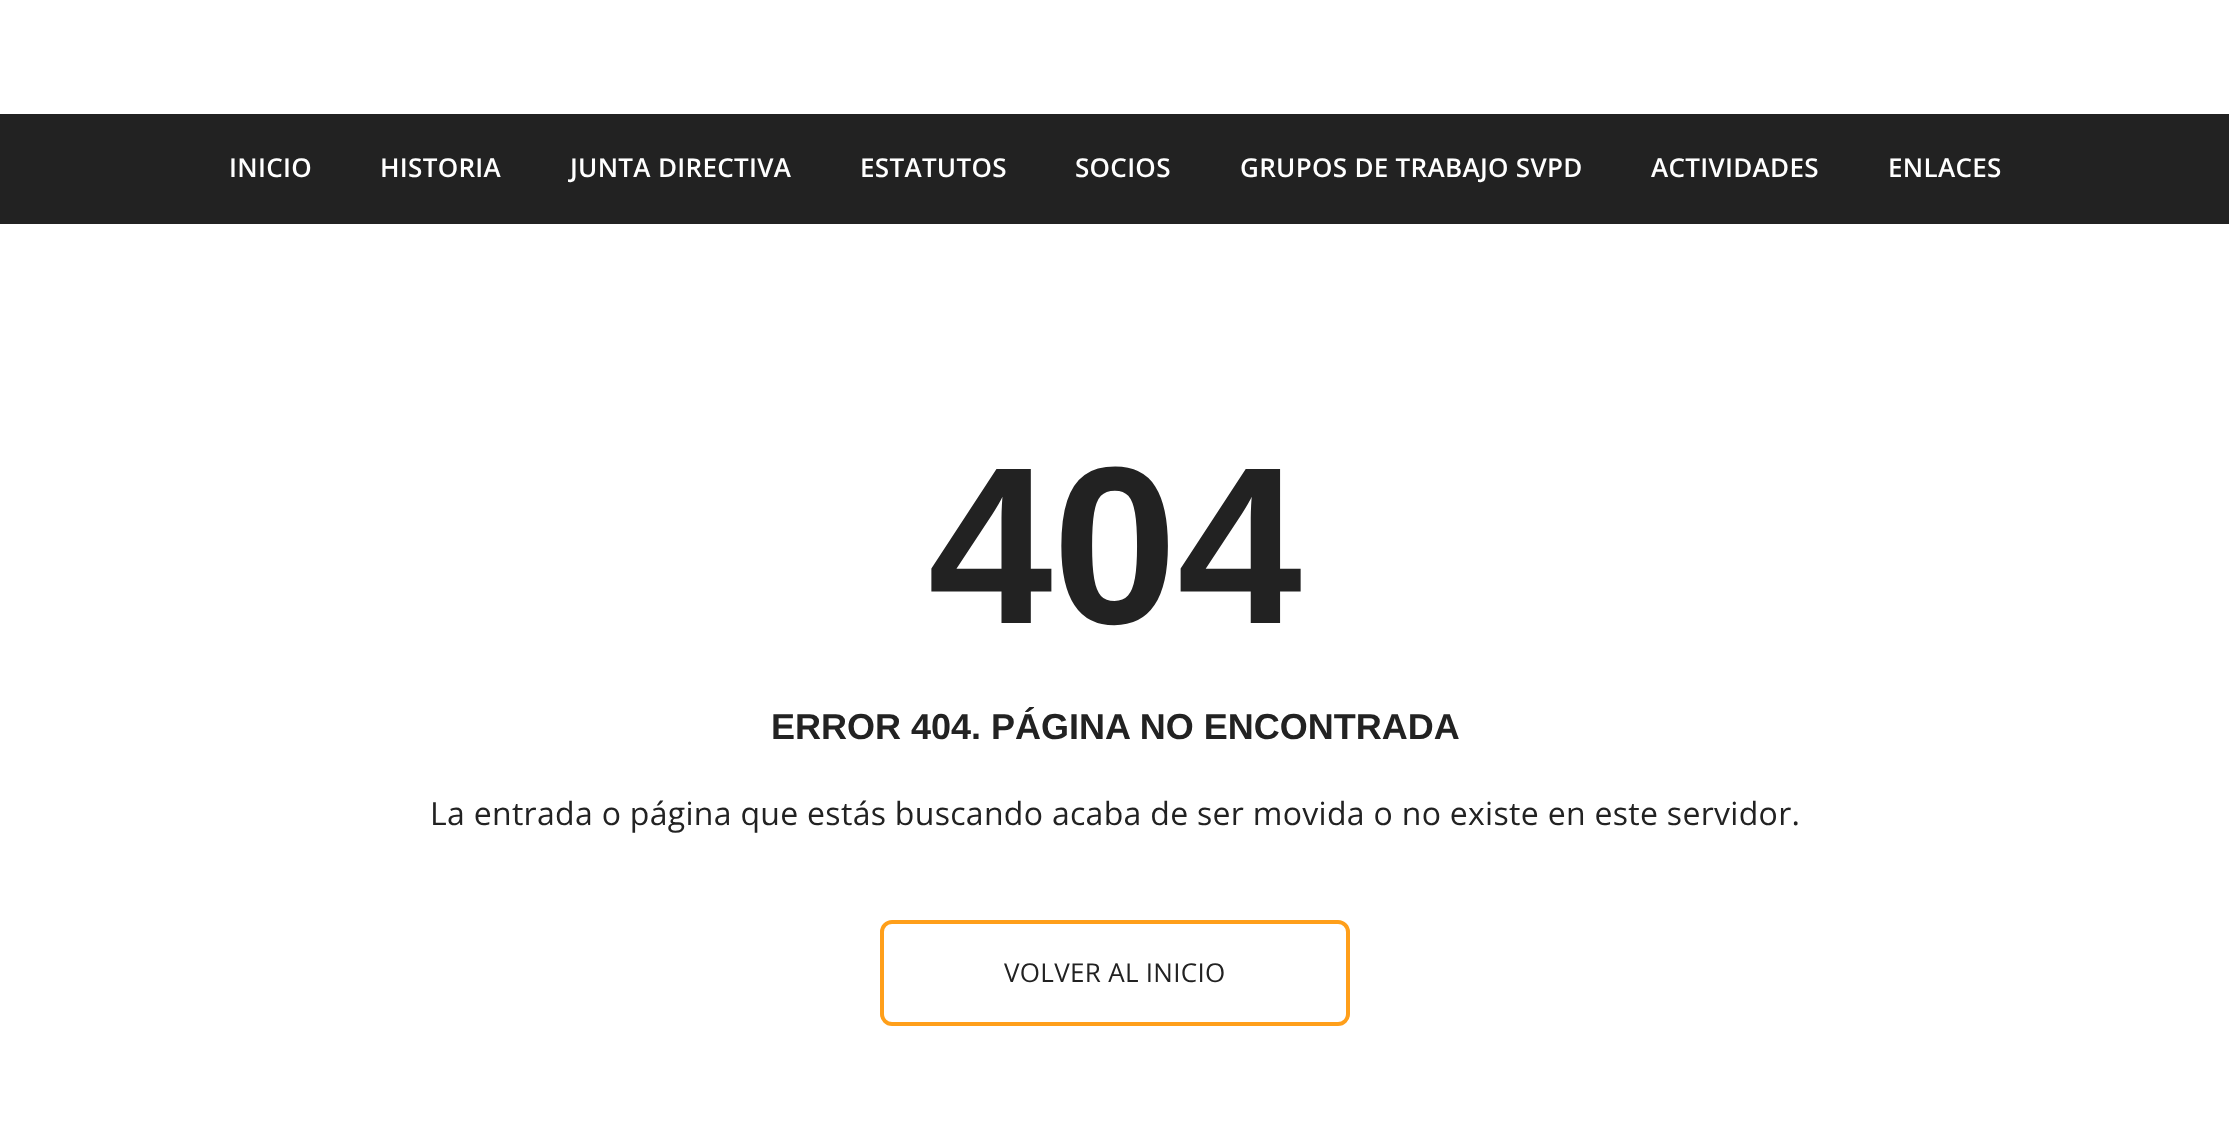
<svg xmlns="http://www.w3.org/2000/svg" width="2229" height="1139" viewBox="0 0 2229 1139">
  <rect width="100%" height="100%" fill="#ffffff"/>
  <rect x="0" y="114" width="2229" height="110" fill="#222222"/>
  <text x="229" y="177" font-family="Open Sans" font-size="26" font-weight="600" letter-spacing="0.3" fill="#ffffff">INICIO</text>
  <text x="380" y="177" font-family="Open Sans" font-size="26" font-weight="600" letter-spacing="0.3" fill="#ffffff">HISTORIA</text>
  <text x="570" y="177" font-family="Open Sans" font-size="26" font-weight="600" letter-spacing="0.3" fill="#ffffff">JUNTA DIRECTIVA</text>
  <text x="860" y="177" font-family="Open Sans" font-size="26" font-weight="600" letter-spacing="0.3" fill="#ffffff">ESTATUTOS</text>
  <text x="1075" y="177" font-family="Open Sans" font-size="26" font-weight="600" letter-spacing="0.3" fill="#ffffff">SOCIOS</text>
  <text x="1240" y="177" font-family="Open Sans" font-size="26" font-weight="600" letter-spacing="0.3" fill="#ffffff">GRUPOS DE TRABAJO SVPD</text>
  <text x="1651" y="177" font-family="Open Sans" font-size="26" font-weight="600" letter-spacing="0.3" fill="#ffffff">ACTIVIDADES</text>
  <text x="1888" y="177" font-family="Open Sans" font-size="26" font-weight="600" letter-spacing="0.3" fill="#ffffff">ENLACES</text>
  <text x="928" y="623" font-family="Liberation Sans" font-size="224" font-weight="bold" fill="#222222">404</text>
  <text x="771" y="739" font-family="Liberation Sans" font-size="36" font-weight="bold" fill="#222222">ERROR 404. PÁGINA NO ENCONTRADA</text>
  <text x="430" y="825" font-family="Open Sans" font-size="32" letter-spacing="0.3" fill="#222222">La entrada o página que estás buscando acaba de ser movida o no existe en este servidor.</text>
  <rect x="882" y="922" width="466" height="102" rx="10" fill="none" stroke="#ff9f1a" stroke-width="4"/>
  <text x="1004" y="982" font-family="Open Sans" font-size="26" letter-spacing="0.3" fill="#222222">VOLVER AL INICIO</text>
</svg>
